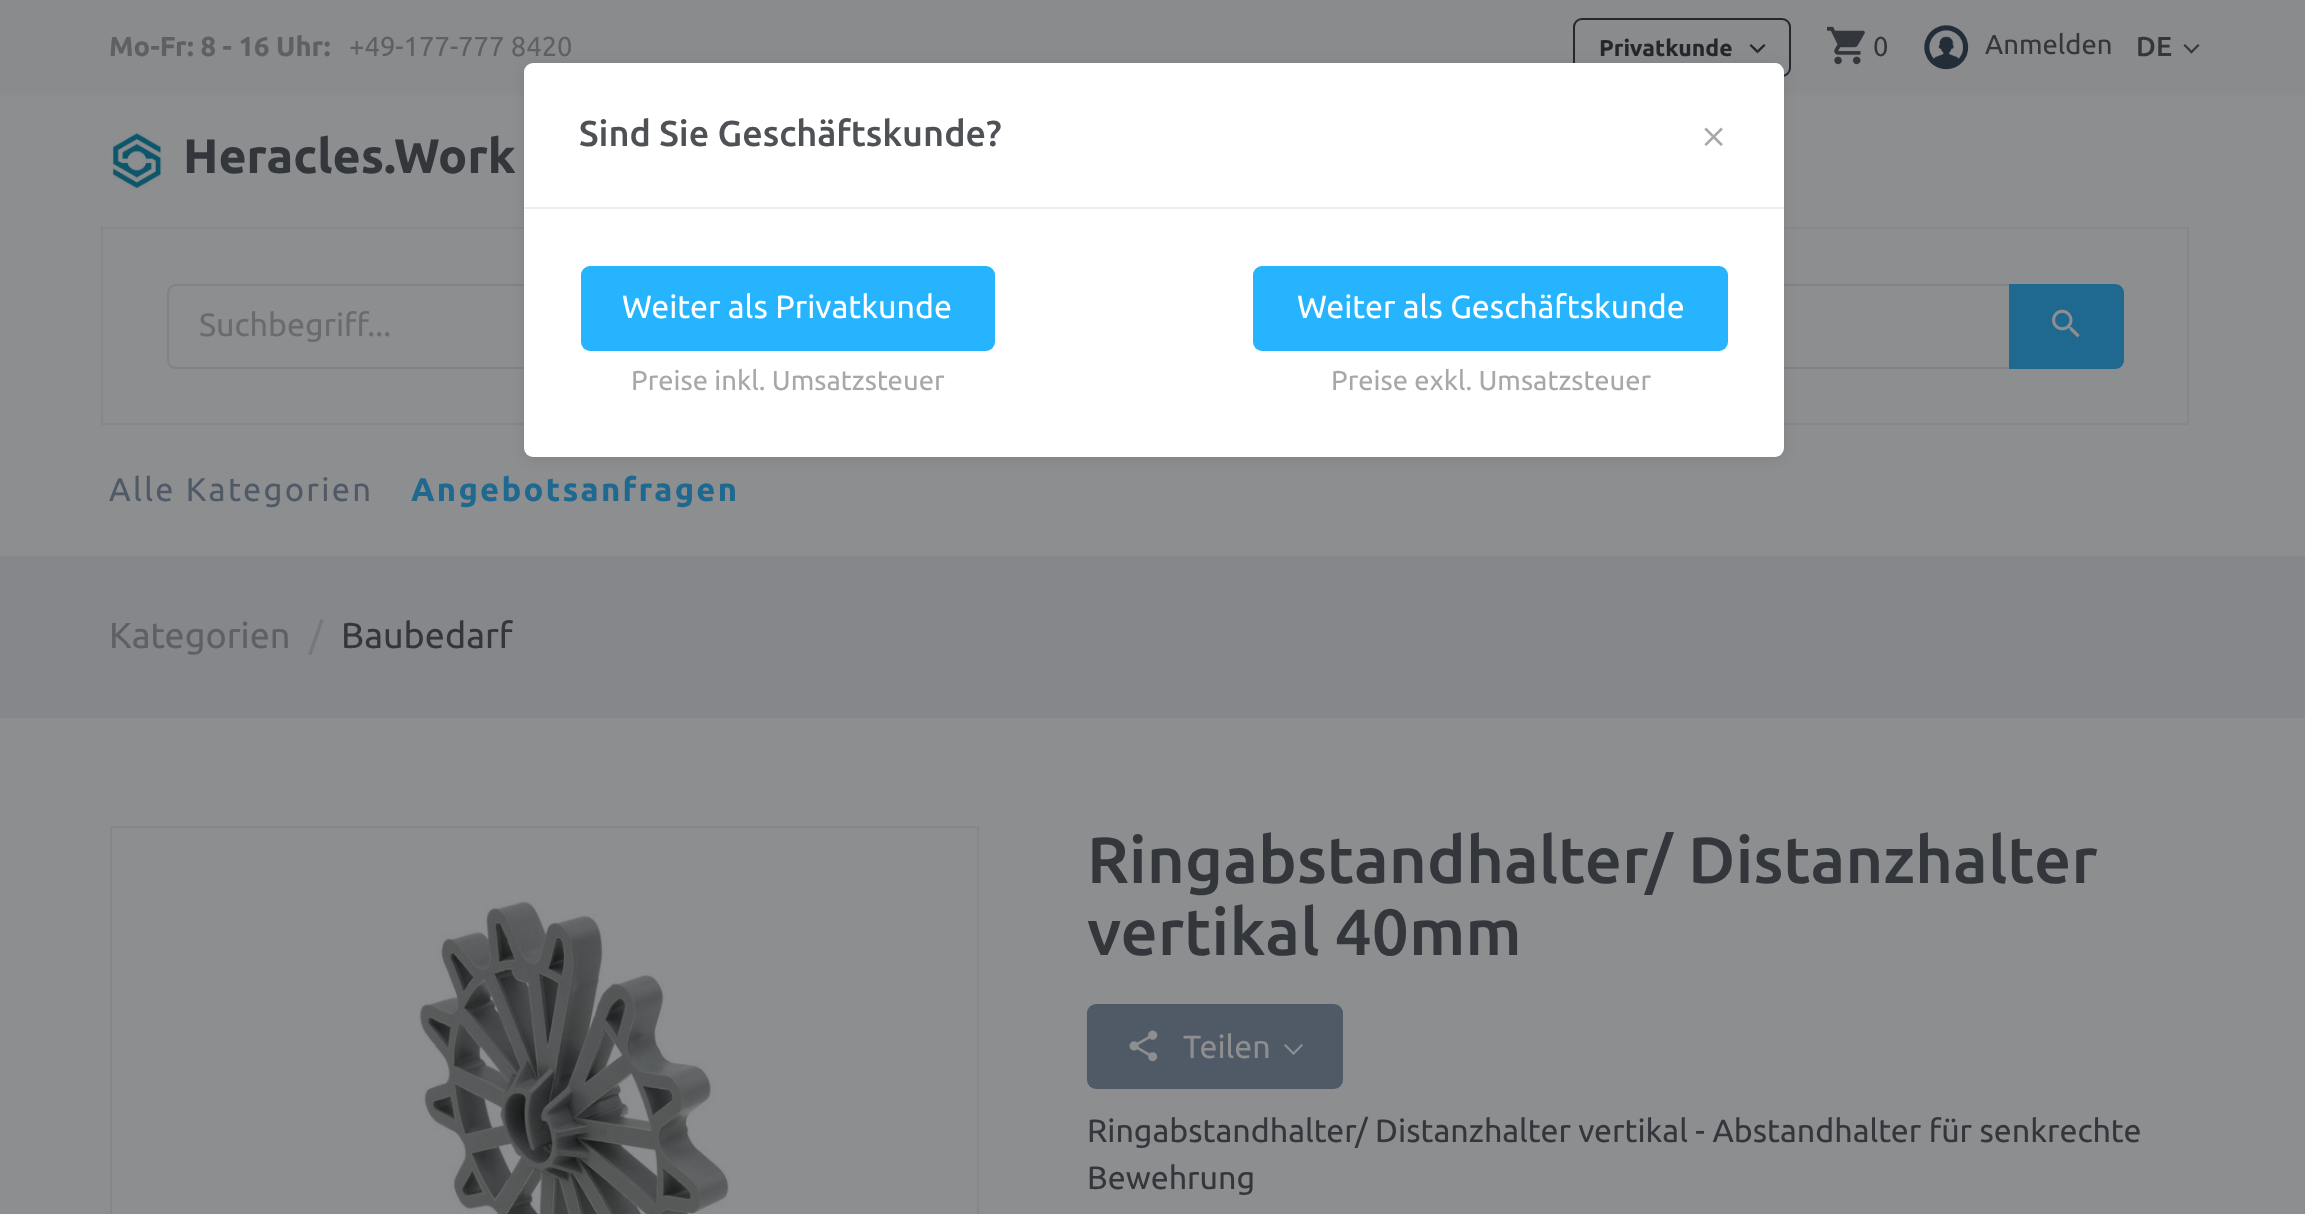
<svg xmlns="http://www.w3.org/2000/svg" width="2305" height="1214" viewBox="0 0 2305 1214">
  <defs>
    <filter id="blur1" x="-50%" y="-200%" width="200%" height="500%"><feGaussianBlur stdDeviation="7"/></filter>
  </defs>
  <rect width="100%" height="100%" fill="#8c8e90"/>
  <rect x="0" y="0" width="2305" height="95" fill="#898b8d"/>
  <text x="109" y="56" font-family="Ubuntu" font-size="27.4" font-weight="bold" fill="#5e6064">Mo-Fr: 8 - 16 Uhr:</text>
  <text x="349" y="56" font-family="Ubuntu" font-size="27.4" fill="#5e6064">+49-177-777 8420</text>
  <rect x="1574" y="19" width="216" height="57" rx="8" fill="none" stroke="#24272c" stroke-width="2"/>
  <text x="1599" y="56" font-family="Ubuntu" font-size="23" font-weight="bold" fill="#24272c">Privatkunde</text>
  <path d="M1765.5 45.5L1757.5 53.5V50L1764 44Z" fill="#24272c"/>
  <path d="M1757.5 53.5L1749.5 45.5L1751 44L1757.5 50Z" fill="#181c21" fill-opacity="0.9"/>
  <image x="1827" y="26" width="38" height="39" href="img1.png"/>
  <text x="1873" y="56" font-family="Ubuntu" font-size="27.4" fill="#33373b">0</text>
  <image x="1924" y="25" width="45" height="45" href="img2.png"/>
  <text x="1985" y="54" font-family="Ubuntu" font-size="27.4" fill="#33373b">Anmelden</text>
  <text x="2136" y="56" font-family="Ubuntu" font-size="27.4" font-weight="500" fill="#33373b">DE</text>
  <path d="M2198 44L2199.5 45.5L2191.5 53.5L2190 52Z" fill="#33373b"/>
  <path d="M2185 44L2193 52L2191.5 53.5L2183.5 45.5Z" fill="#33373b"/>
  <image x="111" y="132" width="51" height="57" href="img3.png"/>
  <text x="183" y="173" font-family="Ubuntu" font-size="48.25" font-weight="bold" fill="#33373b">Heracles.Work</text>
  <rect x="102" y="228" width="2086" height="196" fill="none" stroke="#85878a" stroke-width="2"/>
  <path d="M176 285H2011V368H176C171.5 368 168 364.5 168 360V293C168 288.5 171.5 285 176 285Z" fill="none" stroke="#808285" stroke-width="2"/>
  <text x="199" y="336" font-family="Ubuntu" font-size="32.2" fill="#696c6f">Suchbegriff...</text>
  <path d="M2009 284H2115C2120 284 2124 288 2124 293V360C2124 365 2120 369 2115 369H2009Z" fill="#1f6890"/>
  <image x="2052" y="309" width="28" height="29" href="img4.png"/>
  <text x="109" y="501" font-family="Ubuntu" font-size="32.75" letter-spacing="2.25" fill="#505a66">Alle Kategorien</text>
  <text x="411" y="501" font-family="Ubuntu" font-size="32.75" font-weight="bold" letter-spacing="2.25" fill="#1f6890">Angebotsanfragen</text>
  <rect x="0" y="556" width="2305" height="162" fill="#85878a"/>
  <text x="109" y="648" font-family="Ubuntu" font-size="36" fill="#5e6064">Kategorien</text>
  <text x="309" y="648" font-family="Ubuntu" font-size="36" fill="#75777a">/</text>
  <text x="341" y="648" font-family="Ubuntu" font-size="36" fill="#33373b">Baubedarf</text>
  <rect x="111" y="827" width="867" height="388" fill="none" stroke="#85878a" stroke-width="2"/>
  <image x="419" y="901" width="310" height="313" href="img5.png"/>
  <text x="1087" y="883" font-family="Ubuntu" font-size="65.25" font-weight="500" fill="#33373b">Ringabstandhalter/ Distanzhalter</text>
  <text x="1087" y="955" font-family="Ubuntu" font-size="65.25" font-weight="500" fill="#33373b">vertikal 40mm</text>
  <rect x="1087" y="1004" width="256" height="85" rx="9" fill="#505a66"/>
  <image x="1129" y="1030" width="29" height="32" href="img6.png"/>
  <text x="1183" y="1058" font-family="Ubuntu" font-size="32.2" fill="#8c8e90">Teilen</text>
  <path d="M1301.5 1044L1303 1045.5L1293.5 1055L1292 1053.5Z" fill="#8c8e90"/>
  <path d="M1285.5 1044L1295 1053.5L1293.5 1055L1284 1045.5Z" fill="#8c8e90"/>
  <text x="1087" y="1142" font-family="Ubuntu" font-size="32.2" fill="#33373b">Ringabstandhalter/ Distanzhalter vertikal - Abstandhalter für senkrechte</text>
  <text x="1087" y="1189" font-family="Ubuntu" font-size="32.2" fill="#33373b">Bewehrung</text>
  <rect x="524" y="65" width="1260" height="394" rx="9" fill="#000000" fill-opacity="0.09" filter="url(#blur1)"/>
  <rect x="524" y="63" width="1260" height="394" rx="9" fill="#ffffff"/>
  <rect x="524" y="207" width="1260" height="2" fill="#eeeeee"/>
  <text x="579" y="146" font-family="Ubuntu" font-size="36" font-weight="500" fill="#4e5155">Sind Sie Geschäftskunde?</text>
  <text x="1700" y="151" font-family="Ubuntu" font-size="48.25" font-weight="300" fill="#a7a8aa">×</text>
  <rect x="581" y="266" width="414" height="85" rx="9" fill="#26b4ff"/>
  <text x="622" y="318" font-family="Ubuntu" font-size="32.2" fill="#ffffff">Weiter als Privatkunde</text>
  <text x="631" y="390" font-family="Ubuntu" font-size="27.4" fill="#a7a8aa">Preise inkl. Umsatzsteuer</text>
  <rect x="1253" y="266" width="475" height="85" rx="9" fill="#26b4ff"/>
  <text x="1297" y="318" font-family="Ubuntu" font-size="32.2" fill="#ffffff">Weiter als Geschäftskunde</text>
  <text x="1331" y="390" font-family="Ubuntu" font-size="27.4" fill="#a7a8aa">Preise exkl. Umsatzsteuer</text>
</svg>
